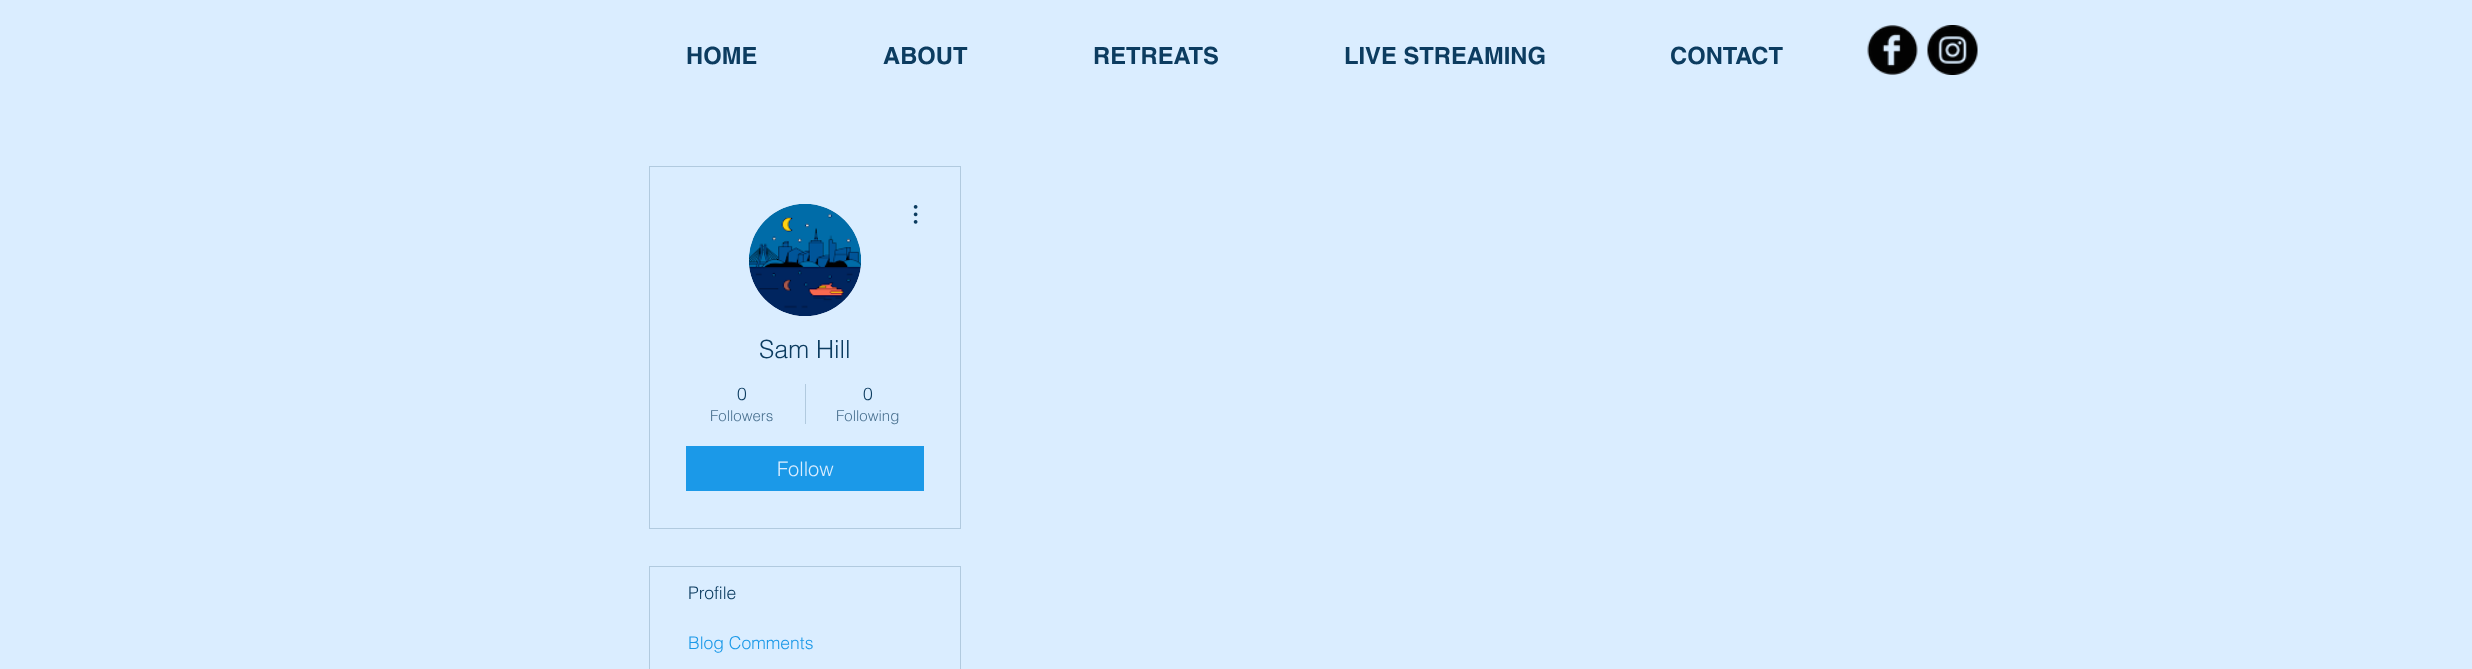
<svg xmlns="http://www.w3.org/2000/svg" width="2472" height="669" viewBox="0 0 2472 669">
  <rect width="100%" height="100%" fill="#daedff"/>
  <text x="686" y="64" font-family="helvetica" font-size="23.75" font-weight="bold" fill="#0c3c60">HOME</text>
  <text x="883" y="64" font-family="helvetica" font-size="23.75" font-weight="bold" fill="#0c3c60">ABOUT</text>
  <text x="1093" y="64" font-family="helvetica" font-size="23.75" font-weight="bold" fill="#0c3c60">RETREATS</text>
  <text x="1344" y="64" font-family="helvetica" font-size="23.75" font-weight="bold" fill="#0c3c60">LIVE STREAMING</text>
  <text x="1670" y="64" font-family="helvetica" font-size="23.75" font-weight="bold" fill="#0c3c60">CONTACT</text>
  <image x="1867" y="25" width="51" height="50" href="img1.png"/>
  <image x="1927" y="25" width="51" height="50" href="img2.png"/>
  <rect x="649.5" y="166.5" width="311" height="362" fill="none" stroke="#b1cadf"/>
  <circle cx="805" cy="260" r="56" fill="#d8d8d8"/>
  <image x="749" y="204" width="112" height="112" href="img3.png"/>
  <image x="913" y="205" width="5" height="19" href="img4.png"/>
  <text x="759" y="358" font-family="helvetica" font-size="25" font-weight="300" fill="#0c3c60">Sam Hill</text>
  <text x="737" y="400" font-family="helvetica" font-size="17.5" font-weight="300" fill="#0c3c60">0</text>
  <text x="710" y="421" font-family="helvetica" font-size="15" font-weight="300" fill="#4a7190">Followers</text>
  <rect x="805" y="384" width="1" height="40" fill="#b1cadf"/>
  <text x="863" y="400" font-family="helvetica" font-size="17.5" font-weight="300" fill="#0c3c60">0</text>
  <text x="836" y="421" font-family="helvetica" font-size="15" font-weight="300" fill="#4a7190">Following</text>
  <rect x="686" y="446" width="238" height="45" fill="#1b99e8"/>
  <text x="777" y="476" font-family="helvetica" font-size="20" font-weight="300" fill="#daedff">Follow</text>
  <rect x="649.5" y="566.5" width="311" height="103" fill="none" stroke="#b1cadf"/>
  <text x="688" y="599" font-family="helvetica" font-size="17.5" font-weight="300" fill="#0c3c60">Profile</text>
  <text x="688" y="649" font-family="helvetica" font-size="17.5" font-weight="300" fill="#1b99e8">Blog Comments</text>
</svg>
